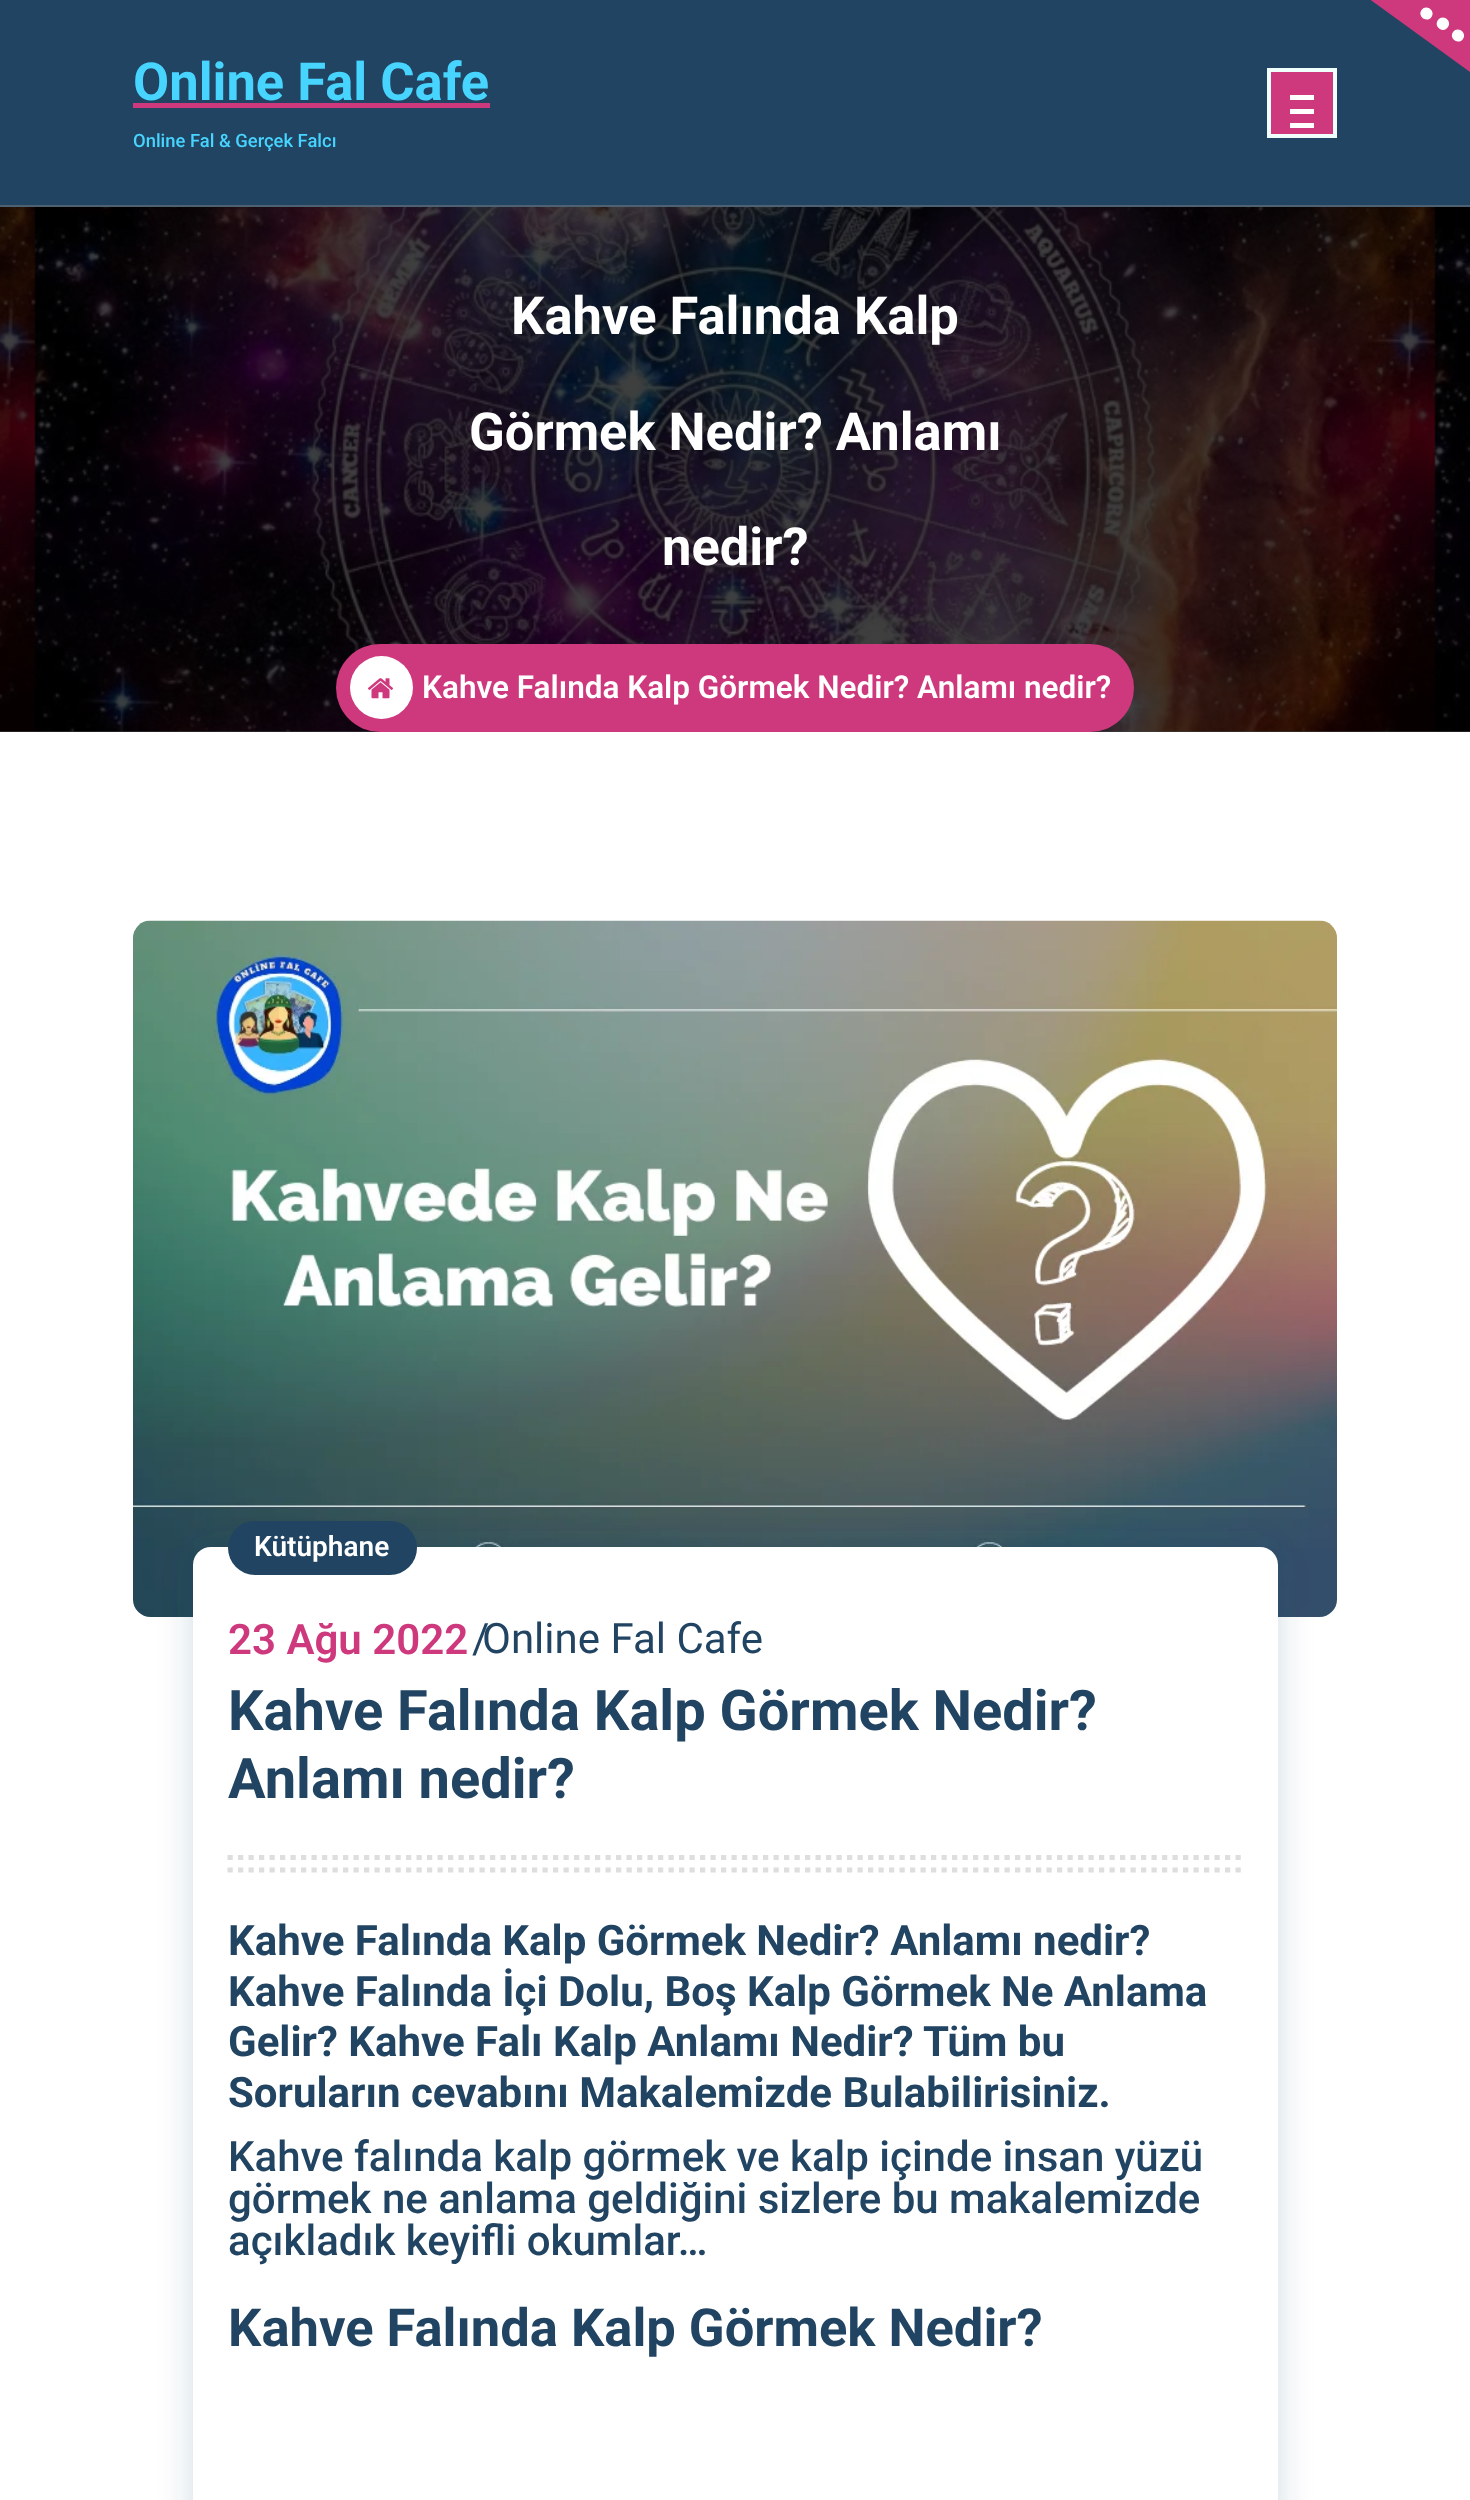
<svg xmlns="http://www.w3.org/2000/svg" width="1470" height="2500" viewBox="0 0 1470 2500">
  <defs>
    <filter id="blur1" x="-50%" y="-200%" width="200%" height="500%"><feGaussianBlur stdDeviation="17.5"/></filter>
  </defs>
  <rect width="100%" height="100%" fill="#ffffff"/>
  <rect x="0" y="731" width="1470" height="1" fill="#404040"/>
  <rect x="0" y="0" width="1470" height="205" fill="#214462"/>
  <rect x="0" y="205" width="1470" height="2" fill="#4e6172"/>
  <path d="M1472-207L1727-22L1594 162L1339-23Z" fill="#ce397d"/>
  <path d="M1438 20C1442.5 13.5 1452.5 20.5 1448 27C1443.5 34 1433 27 1438 20ZM1421.5 10C1426 3.5 1436 10.5 1431.5 17C1427 23.5 1417 16.5 1421.5 10ZM1453 32C1457.5 25.5 1467.5 32.5 1463 39C1458.5 45.5 1448.5 38.5 1453 32Z" fill="#ffffff"/>
  <text x="133" y="100" font-family="Roboto" font-size="52.5" font-weight="bold" fill="#47d4ff">Online Fal Cafe</text>
  <rect x="133" y="103" width="357" height="5" fill="#ce397d"/>
  <text x="133" y="147" font-family="Roboto" font-size="18.4" font-weight="500" fill="#47d4ff">Online Fal &amp; Gerçek Falcı</text>
  <rect x="1269" y="70" width="66" height="66" fill="#ce397d" stroke="#effffc" stroke-width="4"/>
  <rect x="1290" y="95" width="24" height="5" fill="#ffffff"/>
  <rect x="1290" y="109" width="24" height="5" fill="#ffffff"/>
  <rect x="1290" y="123" width="24" height="5" fill="#ffffff"/>
  <image x="0" y="207" width="1470" height="525" href="img1.png"/>
  <text x="511" y="334" font-family="Roboto" font-size="52.5" font-weight="bold" fill="#ffffff">Kahve Falında Kalp</text>
  <text x="469" y="450" font-family="Roboto" font-size="52.5" font-weight="bold" fill="#ffffff">Görmek Nedir? Anlamı</text>
  <text x="662" y="565" font-family="Roboto" font-size="52.5" font-weight="bold" fill="#ffffff">nedir?</text>
  <rect x="336" y="644" width="798" height="88" rx="44" fill="#ce397d"/>
  <circle cx="381.5" cy="687.5" r="31.5" fill="#ffffff"/>
  <image x="367" y="678" width="27" height="21" href="img2.png"/>
  <text x="422" y="698" font-family="Roboto" font-size="31.5" font-weight="600" fill="#ffffff">Kahve Falında Kalp Görmek Nedir? Anlamı nedir?</text>
  <image x="133" y="920" width="1204" height="697" href="img3.png"/>
  <rect x="193" y="1547" width="1085" height="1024" rx="18" fill="#214462" fill-opacity="0.19" filter="url(#blur1)"/>
  <rect x="193" y="1547" width="1085" height="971" rx="18" fill="#ffffff"/>
  <rect x="228" y="1521" width="189" height="54" rx="27" fill="#214462"/>
  <text x="254" y="1556" font-family="Roboto" font-size="28" font-weight="600" fill="#ffffff">Kütüphane</text>
  <text x="228" y="1654" font-family="Roboto" font-size="42" font-weight="600" fill="#ce397d">23 Ağu 2022</text>
  <text x="482" y="1653" font-family="Roboto" font-size="42" fill="#214462">Online Fal Cafe</text>
  <text x="472" y="1653" font-family="Roboto" font-size="42" fill="#214462">/</text>
  <path d="M227.5 1857.5H1242.5" fill="none" stroke="#dedede" stroke-width="5.2" stroke-dasharray="5.25 5.25"/>
  <text x="228" y="1730" font-family="Roboto" font-size="56" font-weight="bold" fill="#214462">Kahve Falında Kalp Görmek Nedir?</text>
  <text x="228" y="1798" font-family="Roboto" font-size="56" font-weight="bold" fill="#214462">Anlamı nedir?</text>
  <path d="M227.5 1870H1242.5" fill="none" stroke="#dedede" stroke-width="5.2" stroke-dasharray="5.25 5.25"/>
  <text x="228" y="1955" font-family="Roboto" font-size="42" font-weight="bold" fill="#214462">Kahve Falında Kalp Görmek Nedir? Anlamı nedir?</text>
  <text x="228" y="2006" font-family="Roboto" font-size="42" font-weight="bold" fill="#214462">Kahve Falında İçi Dolu, Boş Kalp Görmek Ne Anlama</text>
  <text x="228" y="2056" font-family="Roboto" font-size="42" font-weight="bold" fill="#214462">Gelir? Kahve Falı Kalp Anlamı Nedir? Tüm bu</text>
  <text x="228" y="2107" font-family="Roboto" font-size="42" font-weight="bold" fill="#214462">Soruların cevabını Makalemizde Bulabilirisiniz.</text>
  <text x="228" y="2171" font-family="Roboto" font-size="42" font-weight="500" fill="#214462">Kahve falında kalp görmek ve kalp içinde insan yüzü</text>
  <text x="228" y="2213" font-family="Roboto" font-size="42" font-weight="500" fill="#214462">görmek ne anlama geldiğini sizlere bu makalemizde</text>
  <text x="228" y="2255" font-family="Roboto" font-size="42" font-weight="500" fill="#214462">açıkladık keyifli okumlar…</text>
  <text x="228" y="2346" font-family="Roboto" font-size="52.5" font-weight="bold" fill="#214462">Kahve Falında Kalp Görmek Nedir?</text>
</svg>
